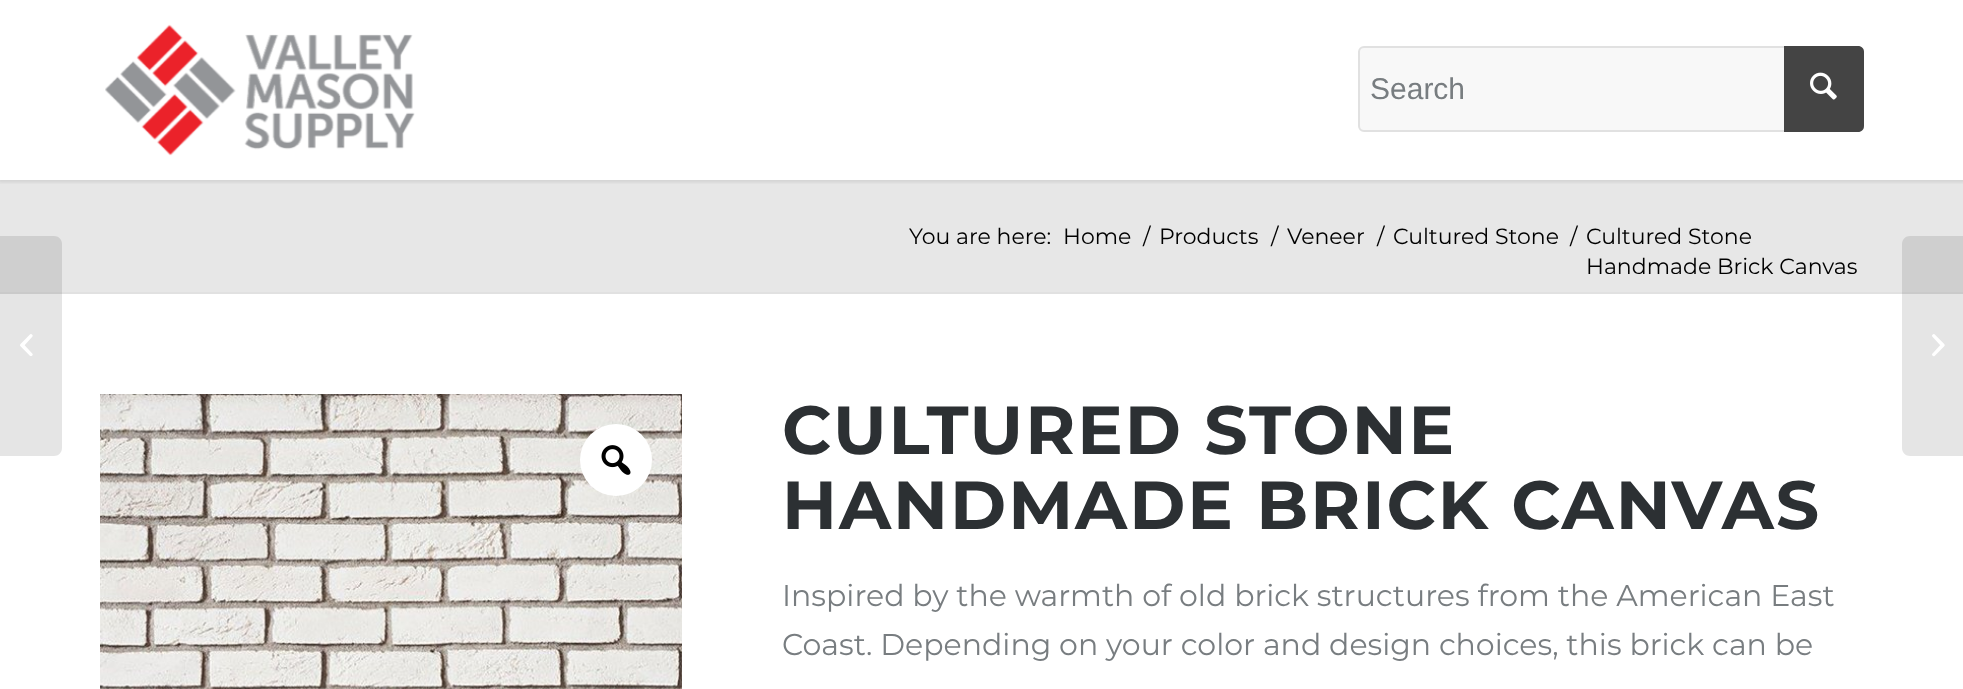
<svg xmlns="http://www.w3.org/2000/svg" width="1963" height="689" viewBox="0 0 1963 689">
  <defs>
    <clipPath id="clip1"><rect x="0" y="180" width="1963" height="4"/></clipPath>
    <filter id="blur1" x="-50%" y="-200%" width="200%" height="500%"><feGaussianBlur stdDeviation="2"/></filter>
  </defs>
  <rect width="100%" height="100%" fill="#ffffff"/>
  <rect x="0" y="180" width="1963" height="112" fill="#e7e7e7"/>
  <g clip-path="url(#clip1)">
    <rect x="-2" y="-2" width="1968" height="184" fill="#000000" fill-opacity="0.1" filter="url(#blur1)"/>
  </g>
  <image x="105" y="24" width="310" height="132" href="img1.png"/>
  <rect x="1359" y="47" width="504" height="84" rx="5" fill="#f8f8f8" stroke="#e1e1e1" stroke-width="2"/>
  <text x="1370" y="99" font-family="Liberation Sans" font-size="30" fill="#787d80">Search</text>
  <path d="M1784 46H1858C1861.5 46 1864 48.5 1864 52V126C1864 129.5 1861.5 132 1858 132H1784Z" fill="#444444"/>
  <image x="1810" y="72" width="27" height="28" href="img2.png"/>
  <rect x="0" y="292" width="1963" height="2" fill="#e1e1e1"/>
  <path d="M0 236H54C58.5 236 62 239.5 62 244V448C62 452.5 58.5 456 54 456H0Z" fill="#000000" fill-opacity="0.1"/>
  <image x="20" y="334" width="13" height="22" href="img3.png"/>
  <text x="909" y="244" font-family="Montserrat" font-size="22" fill="#000000">You are here:</text>
  <text x="1063" y="244" font-family="Montserrat" font-size="22" fill="#000000">Home</text>
  <text x="1143" y="244" font-family="Montserrat" font-size="22" fill="#000000">/</text>
  <text x="1159" y="244" font-family="Montserrat" font-size="22" fill="#000000">Products</text>
  <text x="1271" y="244" font-family="Montserrat" font-size="22" fill="#000000">/</text>
  <text x="1287" y="244" font-family="Montserrat" font-size="22" fill="#000000">Veneer</text>
  <text x="1377" y="244" font-family="Montserrat" font-size="22" fill="#000000">/</text>
  <text x="1393" y="244" font-family="Montserrat" font-size="22" fill="#000000">Cultured Stone</text>
  <text x="1570" y="244" font-family="Montserrat" font-size="22" fill="#000000">/</text>
  <text x="1586" y="244" font-family="Montserrat" font-size="22" fill="#000000">Cultured Stone</text>
  <text x="1586" y="274" font-family="Montserrat" font-size="22" fill="#000000">Handmade Brick Canvas</text>
  <image x="100" y="394" width="582" height="295" href="img4.png"/>
  <circle cx="616" cy="460" r="36" fill="#ffffff"/>
  <image x="601" y="445" width="30" height="30" href="img5.png"/>
  <text x="782" y="454" font-family="Montserrat" font-size="68" font-weight="bold" letter-spacing="2" fill="#2c3033">CULTURED STONE</text>
  <text x="782" y="529" font-family="Montserrat" font-size="68" font-weight="bold" letter-spacing="2" fill="#2c3033">HANDMADE BRICK CANVAS</text>
  <text x="782" y="606" font-family="Montserrat" font-size="30" fill="#787d80">Inspired by the warmth of old brick structures from the American East</text>
  <text x="782" y="655" font-family="Montserrat" font-size="30" fill="#787d80">Coast. Depending on your color and design choices, this brick can be</text>
  <path d="M1910 236H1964V456H1910C1905.5 456 1902 452.5 1902 448V244C1902 239.5 1905.5 236 1910 236Z" fill="#000000" fill-opacity="0.1"/>
  <image x="1932" y="334" width="13" height="23" href="img6.png"/>
</svg>
